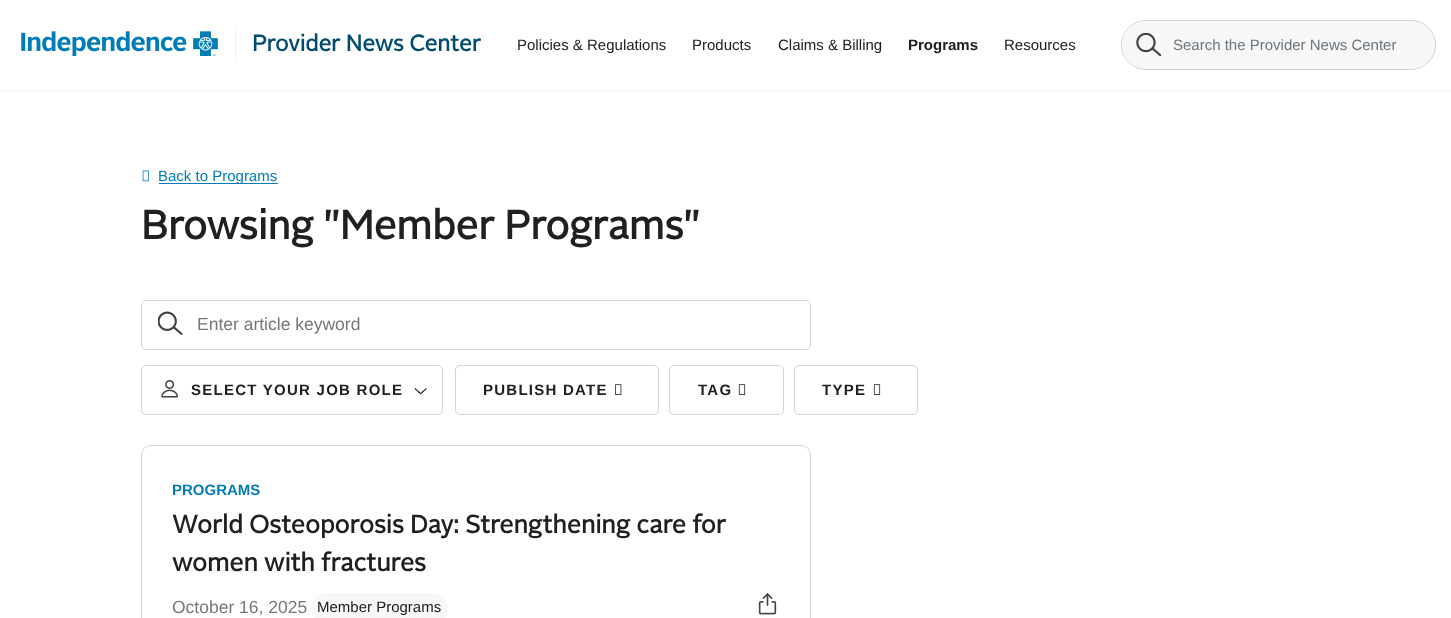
<svg xmlns="http://www.w3.org/2000/svg" width="1451" height="618" viewBox="0 0 1451 618">
  <defs>
    <clipPath id="clip1"><rect x="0" y="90" width="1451" height="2"/></clipPath>
    <filter id="blur1" x="-50%" y="-200%" width="200%" height="500%"><feGaussianBlur stdDeviation="1"/></filter>
  </defs>
  <rect width="100%" height="100%" fill="#ffffff"/>
  <g clip-path="url(#clip1)">
    <rect x="0" y="1" width="1451" height="90" fill="#000000" fill-opacity="0.07" filter="url(#blur1)"/>
  </g>
  <image x="21" y="31" width="197" height="25" href="img1.png"/>
  <rect x="235" y="29" width="1" height="32" fill="#f1f1f1"/>
  <text x="252" y="51" font-family="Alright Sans" font-size="22.5" font-weight="bold" fill="#004c6f">Provider News Center</text>
  <text x="517" y="50" font-family="Liberation Sans" font-size="15" fill="#202020">Policies &amp; Regulations</text>
  <text x="692" y="50" font-family="Liberation Sans" font-size="15" fill="#202020">Products</text>
  <text x="778" y="50" font-family="Liberation Sans" font-size="15" fill="#202020">Claims &amp; Billing</text>
  <text x="908" y="50" font-family="Liberation Sans" font-size="15" font-weight="bold" fill="#202020">Programs</text>
  <text x="1004" y="50" font-family="Liberation Sans" font-size="15" fill="#202020">Resources</text>
  <rect x="1123" y="21" width="312" height="48" rx="24" fill="#f7f7f7"/>
  <rect x="1121.5" y="20.5" width="314" height="49" rx="24.5" fill="none" stroke="#ced4da"/>
  <image x="1136" y="33" width="25" height="23" href="img2.png"/>
  <text x="1173" y="50" font-family="Liberation Sans" font-size="15" fill="#6c757d">Search the Provider News Center</text>
  <image x="142" y="170" width="7" height="12" href="img3.png"/>
  <text x="158" y="181" font-family="Liberation Sans" font-size="15" fill="#007db6">Back to Programs</text>
  <rect x="159" y="183" width="119" height="1" fill="#007db6"/>
  <text x="141" y="239" font-family="Alright Sans" font-size="40" font-weight="bold" fill="#202020">Browsing "Member Programs"</text>
  <rect x="141.5" y="300.5" width="669" height="49" rx="4.5" fill="none" stroke="#d6d6d6"/>
  <image x="158" y="311" width="25" height="24" href="img4.png"/>
  <text x="197" y="330" font-family="Liberation Sans" font-size="17.5" fill="#797676">Enter article keyword</text>
  <rect x="141.5" y="365.5" width="301" height="49" rx="4.5" fill="none" stroke="#d6d6d6"/>
  <image x="161" y="380" width="17" height="18" href="img5.png"/>
  <text x="191" y="395" font-family="Liberation Sans" font-size="15" font-weight="bold" letter-spacing="1.25" fill="#202020">SELECT YOUR JOB ROLE</text>
  <image x="414" y="388" width="13" height="7" href="img6.png"/>
  <rect x="455.5" y="365.5" width="203" height="49" rx="4.5" fill="none" stroke="#d6d6d6"/>
  <text x="483" y="395" font-family="Liberation Sans" font-size="15" font-weight="bold" letter-spacing="1.25" fill="#202020">PUBLISH DATE</text>
  <image x="615" y="384" width="7" height="11" href="img7.png"/>
  <rect x="669.5" y="365.5" width="114" height="49" rx="4.5" fill="none" stroke="#d6d6d6"/>
  <text x="698" y="395" font-family="Liberation Sans" font-size="15" font-weight="bold" letter-spacing="1.25" fill="#202020">TAG</text>
  <image x="738" y="384" width="8" height="11" href="img8.png"/>
  <rect x="794.5" y="365.5" width="123" height="49" rx="4.5" fill="none" stroke="#d6d6d6"/>
  <text x="822" y="395" font-family="Liberation Sans" font-size="15" font-weight="bold" letter-spacing="1.25" fill="#202020">TYPE</text>
  <image x="873" y="384" width="8" height="11" href="img8.png"/>
  <rect x="141.5" y="445.5" width="669" height="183" rx="9.5" fill="none" stroke="#d6d6d6"/>
  <text x="172" y="495" font-family="Liberation Sans" font-size="15" font-weight="bold" fill="#007db6">PROGRAMS</text>
  <text x="172" y="533" font-family="Alright Sans" font-size="25" font-weight="bold" fill="#202020">World Osteoporosis Day: Strengthening care for</text>
  <text x="172" y="571" font-family="Alright Sans" font-size="25" font-weight="bold" fill="#202020">women with fractures</text>
  <text x="172" y="613" font-family="Liberation Sans" font-size="17.5" fill="#797676">October 16, 2025</text>
  <rect x="311" y="593" width="137" height="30" rx="15" fill="#f7f7f7"/>
  <text x="317" y="612" font-family="Liberation Sans" font-size="15" fill="#202020">Member Programs</text>
  <image x="758" y="593" width="19" height="22" href="img9.png"/>
</svg>
